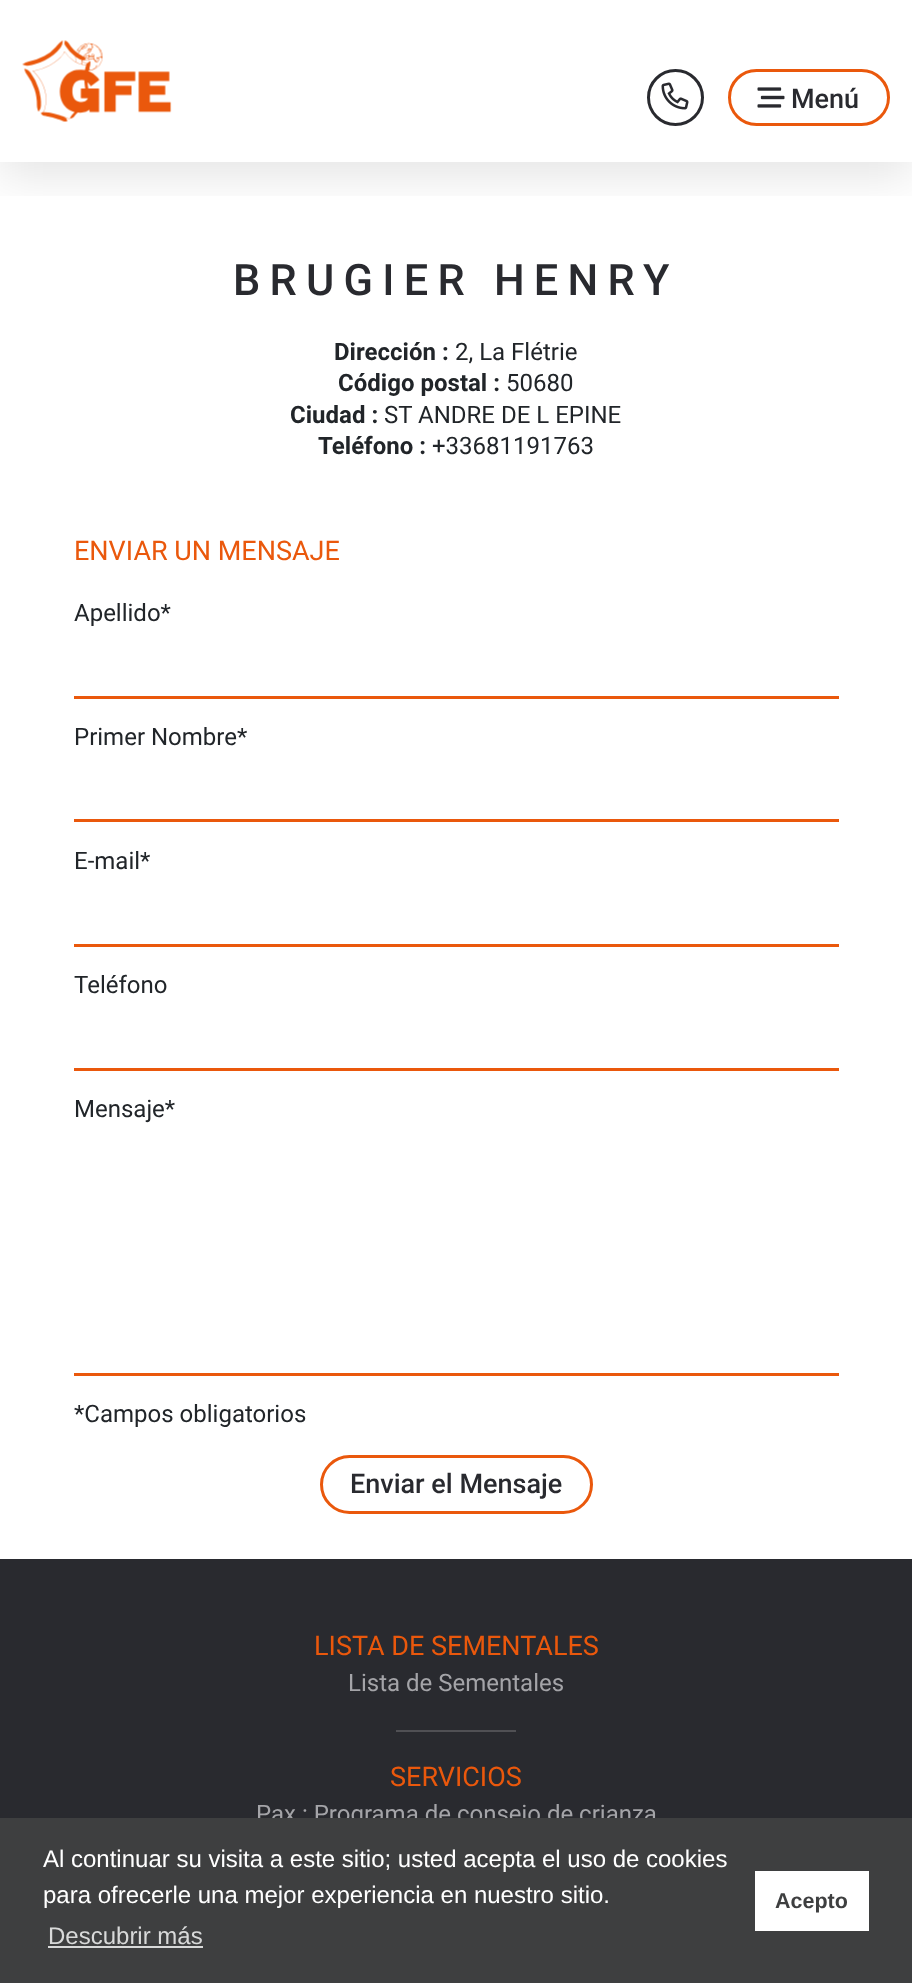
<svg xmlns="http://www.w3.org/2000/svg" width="912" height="1983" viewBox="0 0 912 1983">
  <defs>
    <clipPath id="clip1"><rect x="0" y="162" width="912" height="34"/></clipPath>
    <filter id="blur1" x="-50%" y="-200%" width="200%" height="500%"><feGaussianBlur stdDeviation="22.5"/></filter>
  </defs>
  <rect width="100%" height="100%" fill="#ffffff"/>
  <g clip-path="url(#clip1)">
    <rect x="0" y="15" width="912" height="162" fill="#000000" fill-opacity="0.1" filter="url(#blur1)"/>
  </g>
  <image x="22" y="40" width="150" height="82" href="img1.png"/>
  <circle cx="675.5" cy="97.5" r="27" fill="none" stroke="#292a2f" stroke-width="3"/>
  <image x="661" y="82" width="28" height="28" href="img2.png"/>
  <rect x="729.5" y="70.5" width="159" height="54" rx="27" fill="none" stroke="#ea580c" stroke-width="3"/>
  <image x="757" y="87" width="28" height="21" href="img3.png"/>
  <text x="791" y="108" font-family="Roboto" font-size="27" font-weight="500" fill="#292a2f">Menú</text>
  <text x="233" y="295" font-family="Roboto" font-size="43.25" font-weight="500" letter-spacing="9.25" fill="#292a2f">BRUGIER HENRY</text>
  <text x="334" y="360" font-family="Roboto" font-size="24" font-weight="bold" fill="#212529">Dirección :</text>
  <text x="455" y="360" font-family="Roboto" font-size="24" fill="#212529">2, La Flétrie</text>
  <text x="338" y="391" font-family="Roboto" font-size="24" font-weight="bold" fill="#212529">Código postal :</text>
  <text x="506" y="391" font-family="Roboto" font-size="24" fill="#212529">50680</text>
  <text x="290" y="423" font-family="Roboto" font-size="24" font-weight="bold" fill="#212529">Ciudad :</text>
  <text x="384" y="423" font-family="Roboto" font-size="24" fill="#212529">ST ANDRE DE L EPINE</text>
  <text x="318" y="454" font-family="Roboto" font-size="24" font-weight="bold" fill="#212529">Teléfono :</text>
  <text x="432" y="454" font-family="Roboto" font-size="24" fill="#212529">+33681191763</text>
  <text x="74" y="560" font-family="Roboto" font-size="27" fill="#ea580c">ENVIAR UN MENSAJE</text>
  <text x="74" y="621" font-family="Roboto" font-size="24" fill="#212529">Apellido*</text>
  <rect x="74" y="696" width="765" height="3" fill="#ea580c"/>
  <text x="74" y="745" font-family="Roboto" font-size="24" fill="#212529">Primer Nombre*</text>
  <rect x="74" y="819" width="765" height="3" fill="#ea580c"/>
  <text x="74" y="869" font-family="Roboto" font-size="24" fill="#212529">E-mail*</text>
  <rect x="74" y="944" width="765" height="3" fill="#ea580c"/>
  <text x="74" y="993" font-family="Roboto" font-size="24" fill="#212529">Teléfono</text>
  <rect x="74" y="1068" width="765" height="3" fill="#ea580c"/>
  <text x="74" y="1117" font-family="Roboto" font-size="24" fill="#212529">Mensaje*</text>
  <rect x="74" y="1373" width="765" height="3" fill="#ea580c"/>
  <text x="74" y="1422" font-family="Roboto" font-size="24" fill="#212529">*Campos obligatorios</text>
  <rect x="321.5" y="1456.5" width="270" height="56" rx="28" fill="none" stroke="#ea580c" stroke-width="3"/>
  <text x="350" y="1493" font-family="Roboto" font-size="27" font-weight="500" fill="#292a2f">Enviar el Mensaje</text>
  <rect x="0" y="1559" width="912" height="259" fill="#292a2f"/>
  <text x="314" y="1655" font-family="Roboto" font-size="27" fill="#ea580c">LISTA DE SEMENTALES</text>
  <text x="348" y="1691" font-family="Roboto" font-size="24" fill="#a4a4a8">Lista de Sementales</text>
  <rect x="396" y="1730" width="120" height="2" fill="#505054"/>
  <text x="390" y="1786" font-family="Roboto" font-size="27" fill="#ea580c">SERVICIOS</text>
  <text x="256" y="1822" font-family="Roboto" font-size="24" fill="#a4a4a8">Pax : Programa de consejo de crianza</text>
  <rect x="0" y="1818" width="912" height="165" fill="#3e3f40"/>
  <text x="43" y="1867" font-family="Liberation Sans" font-size="24" fill="#ffffff">Al continuar su visita a este sitio; usted acepta el uso de cookies</text>
  <text x="43" y="1903" font-family="Liberation Sans" font-size="24" fill="#ffffff">para ofrecerle una mejor experiencia en nuestro sitio.</text>
  <text x="48" y="1944" font-family="Liberation Sans" font-size="24" fill="#d8d9d9">Descubrir más</text>
  <rect x="48" y="1946" width="155" height="2" fill="#d8d9d9"/>
  <rect x="755" y="1871" width="114" height="60" fill="#ffffff"/>
  <text x="775" y="1908" font-family="Liberation Sans" font-size="21.5" font-weight="bold" fill="#3e3f40">Acepto</text>
</svg>
